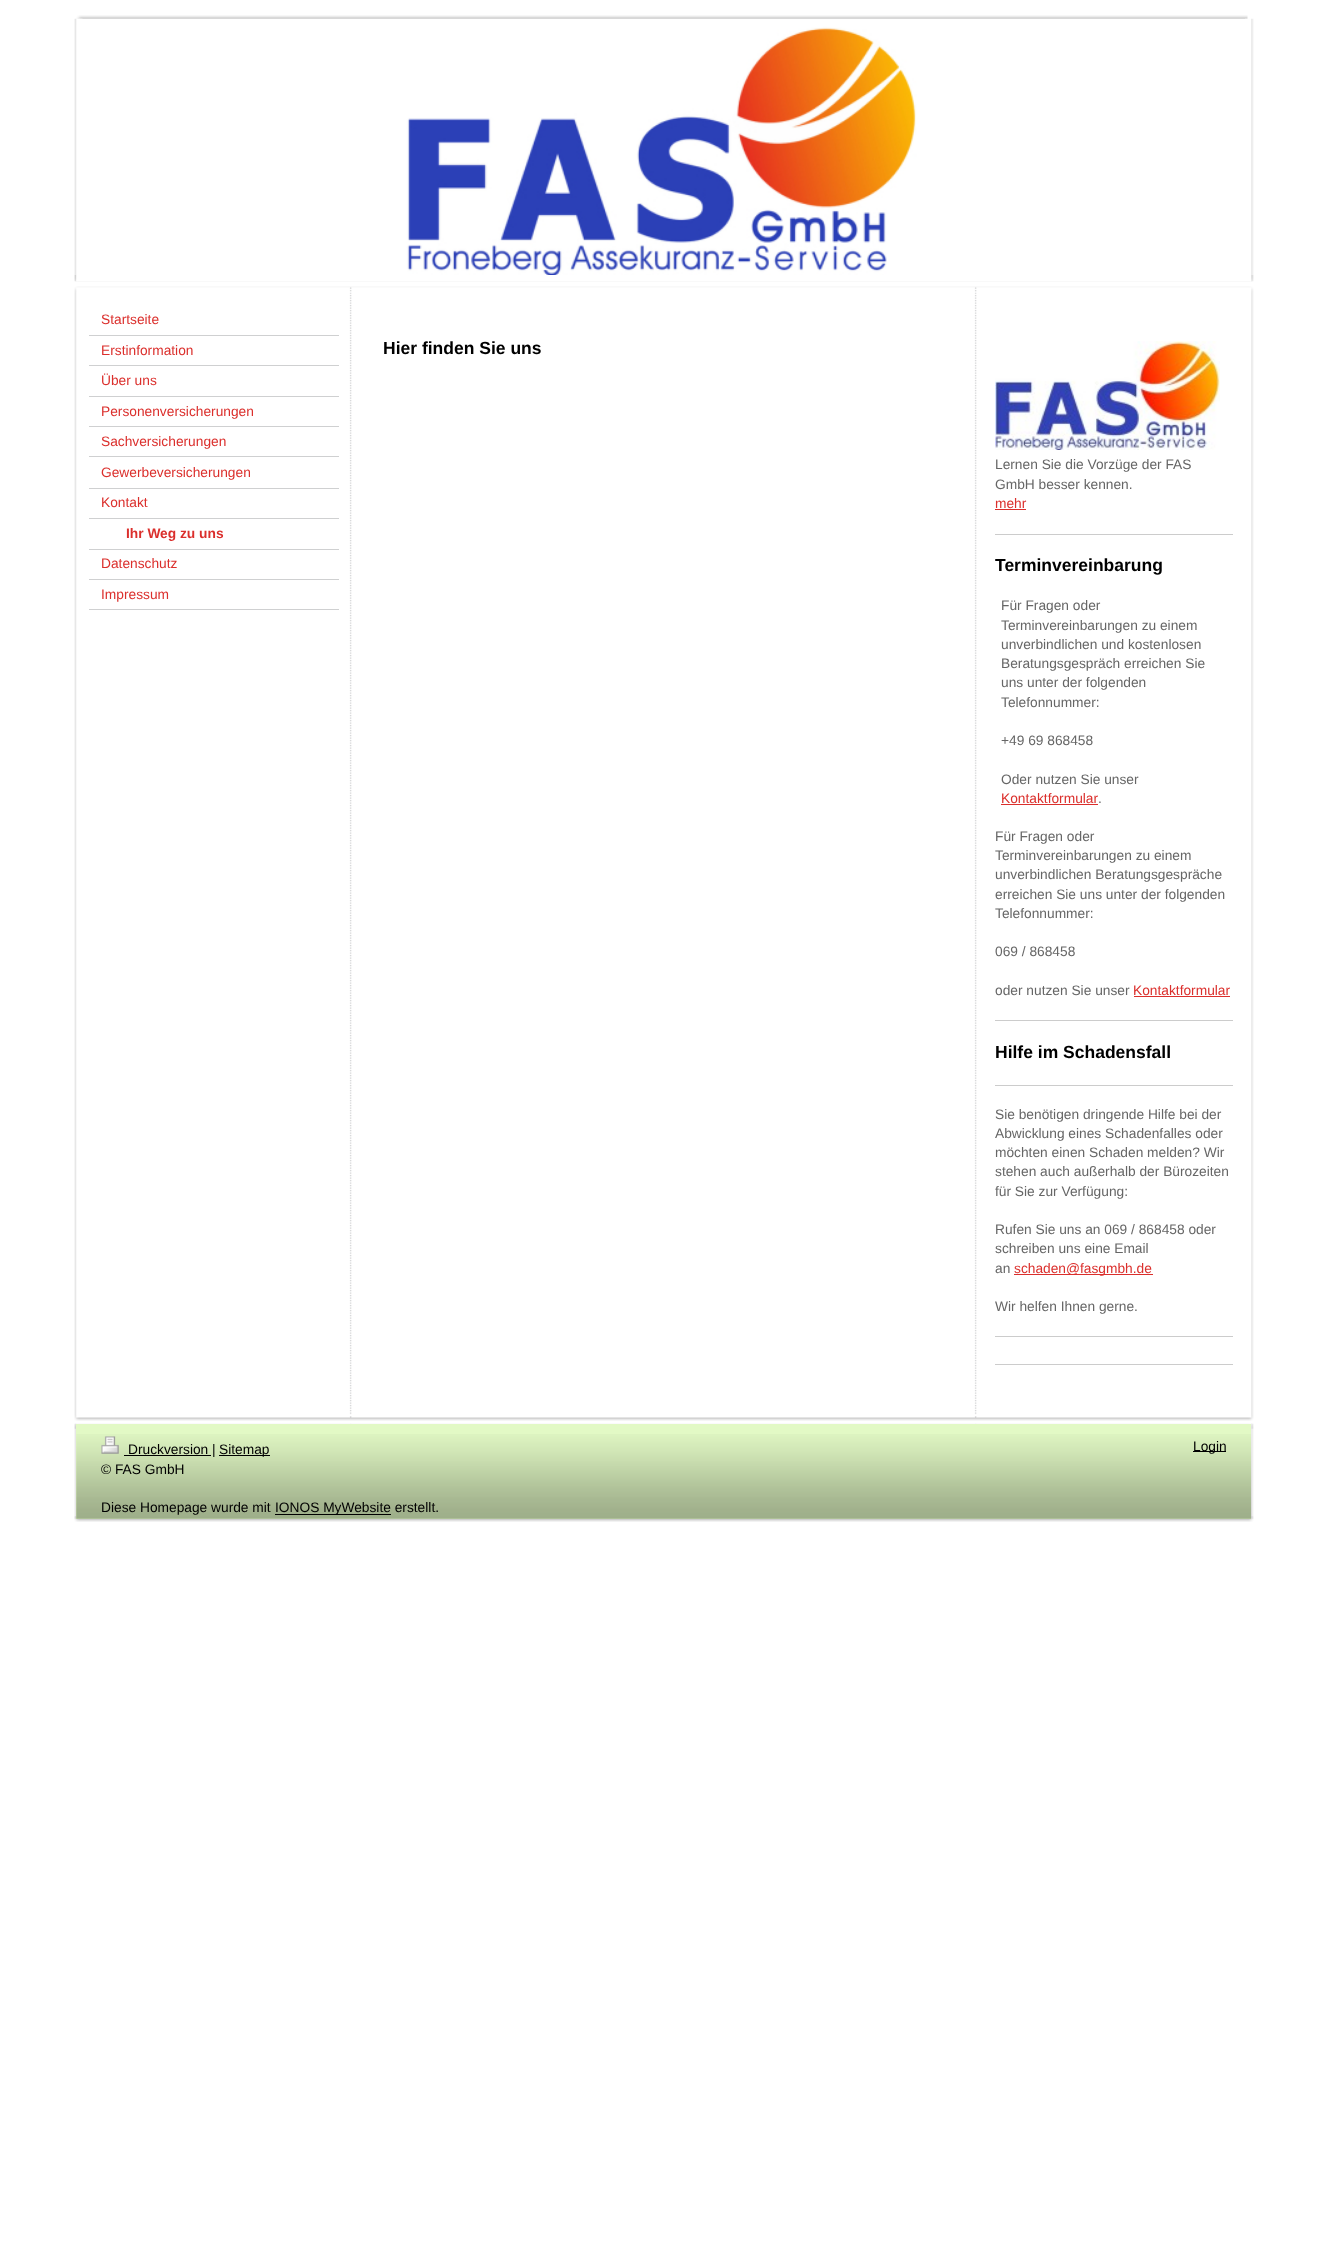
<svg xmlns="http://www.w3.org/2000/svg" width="1327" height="2261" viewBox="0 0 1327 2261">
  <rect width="100%" height="100%" fill="#ffffff"/>
  <image x="76" y="19" width="1169" height="262" href="img4.png"/>
  <image x="76" y="15" width="1172" height="10" href="img1.png"/>
  <image x="74" y="18" width="9" height="264" href="img2.png"/>
  <image x="1245" y="18" width="9" height="264" href="img3.png"/>
  <image x="74" y="275" width="1180" height="7" href="img5.png"/>
  <image x="74" y="286" width="1180" height="7" href="img6.png"/>
  <image x="74" y="1415" width="1180" height="6" href="img7.png"/>
  <image x="74" y="292" width="1180" height="1123" href="img8.png"/>
  <rect x="89" y="335" width="250" height="1" fill="#cfd0d1"/>
  <text x="101" y="324" font-family="Liberation Sans" font-size="13.75" fill="#db2f2c">Startseite</text>
  <rect x="89" y="365" width="250" height="1" fill="#cfd0d1"/>
  <text x="101" y="355" font-family="Liberation Sans" font-size="13.75" fill="#db2f2c">Erstinformation</text>
  <rect x="89" y="396" width="250" height="1" fill="#cfd0d1"/>
  <text x="101" y="385" font-family="Liberation Sans" font-size="13.75" fill="#db2f2c">Über uns</text>
  <rect x="89" y="426" width="250" height="1" fill="#cfd0d1"/>
  <text x="101" y="416" font-family="Liberation Sans" font-size="13.75" fill="#db2f2c">Personenversicherungen</text>
  <rect x="89" y="456" width="250" height="1" fill="#cfd0d1"/>
  <text x="101" y="446" font-family="Liberation Sans" font-size="13.75" fill="#db2f2c">Sachversicherungen</text>
  <rect x="89" y="488" width="250" height="1" fill="#cfd0d1"/>
  <text x="101" y="477" font-family="Liberation Sans" font-size="13.75" fill="#db2f2c">Gewerbeversicherungen</text>
  <rect x="89" y="518" width="250" height="1" fill="#cfd0d1"/>
  <text x="101" y="507" font-family="Liberation Sans" font-size="13.75" fill="#db2f2c">Kontakt</text>
  <rect x="89" y="549" width="250" height="1" fill="#cfd0d1"/>
  <text x="126" y="538" font-family="Liberation Sans" font-size="13.75" font-weight="bold" fill="#db2f2c">Ihr Weg zu uns</text>
  <rect x="89" y="579" width="250" height="1" fill="#cfd0d1"/>
  <text x="101" y="568" font-family="Liberation Sans" font-size="13.75" fill="#db2f2c">Datenschutz</text>
  <rect x="89" y="609" width="250" height="1" fill="#cfd0d1"/>
  <text x="101" y="599" font-family="Liberation Sans" font-size="13.75" fill="#db2f2c">Impressum</text>
  <text x="383" y="354" font-family="Liberation Sans" font-size="17.5" font-weight="bold" fill="#000000">Hier finden Sie uns</text>
  <image x="995" y="341" width="225" height="109" href="img9.png"/>
  <text x="995" y="469" font-family="Liberation Sans" font-size="13.75" fill="#666666">Lernen Sie die Vorzüge der FAS</text>
  <text x="995" y="489" font-family="Liberation Sans" font-size="13.75" fill="#666666">GmbH besser kennen.</text>
  <text x="995" y="508" font-family="Liberation Sans" font-size="13.75" fill="#db2f2c">mehr</text>
  <rect x="995" y="509" width="31" height="1" fill="#db2f2c"/>
  <rect x="995" y="534" width="238" height="1" fill="#cccccc"/>
  <text x="995" y="571" font-family="Liberation Sans" font-size="17.5" font-weight="bold" fill="#000000">Terminvereinbarung</text>
  <text x="1001" y="610" font-family="Liberation Sans" font-size="13.75" fill="#666666">Für Fragen oder</text>
  <text x="1001" y="630" font-family="Liberation Sans" font-size="13.75" fill="#666666">Terminvereinbarungen zu einem</text>
  <text x="1001" y="649" font-family="Liberation Sans" font-size="13.75" fill="#666666">unverbindlichen und kostenlosen</text>
  <text x="1001" y="668" font-family="Liberation Sans" font-size="13.75" fill="#666666">Beratungsgespräch erreichen Sie</text>
  <text x="1001" y="687" font-family="Liberation Sans" font-size="13.75" fill="#666666">uns unter der folgenden</text>
  <text x="1001" y="707" font-family="Liberation Sans" font-size="13.75" fill="#666666">Telefonnummer:</text>
  <text x="1001" y="745" font-family="Liberation Sans" font-size="13.75" fill="#666666">+49 69 868458</text>
  <text x="1001" y="784" font-family="Liberation Sans" font-size="13.75" fill="#666666">Oder nutzen Sie unser</text>
  <text x="1001" y="803" font-family="Liberation Sans" font-size="13.75" fill="#db2f2c">Kontaktformular</text>
  <rect x="1001" y="804" width="97" height="1" fill="#db2f2c"/>
  <text x="1098" y="803" font-family="Liberation Sans" font-size="13.75" fill="#666666">.</text>
  <text x="995" y="841" font-family="Liberation Sans" font-size="13.75" fill="#666666">Für Fragen oder</text>
  <text x="995" y="860" font-family="Liberation Sans" font-size="13.75" fill="#666666">Terminvereinbarungen zu einem</text>
  <text x="995" y="879" font-family="Liberation Sans" font-size="13.75" fill="#666666">unverbindlichen Beratungsgespräche</text>
  <text x="995" y="899" font-family="Liberation Sans" font-size="13.75" fill="#666666">erreichen Sie uns unter der folgenden</text>
  <text x="995" y="918" font-family="Liberation Sans" font-size="13.75" fill="#666666">Telefonnummer:</text>
  <text x="995" y="956" font-family="Liberation Sans" font-size="13.75" fill="#666666">069 / 868458</text>
  <text x="995" y="995" font-family="Liberation Sans" font-size="13.75" fill="#666666">oder nutzen Sie unser</text>
  <text x="1133" y="995" font-family="Liberation Sans" font-size="13.75" fill="#db2f2c">Kontaktformular</text>
  <rect x="1134" y="996" width="96" height="1" fill="#db2f2c"/>
  <rect x="995" y="1020" width="238" height="1" fill="#cccccc"/>
  <text x="995" y="1058" font-family="Liberation Sans" font-size="17.5" font-weight="bold" fill="#000000">Hilfe im Schadensfall</text>
  <rect x="995" y="1085" width="238" height="1" fill="#cccccc"/>
  <text x="995" y="1119" font-family="Liberation Sans" font-size="13.75" fill="#666666">Sie benötigen dringende Hilfe bei der</text>
  <text x="995" y="1138" font-family="Liberation Sans" font-size="13.75" fill="#666666">Abwicklung eines Schadenfalles oder</text>
  <text x="995" y="1157" font-family="Liberation Sans" font-size="13.75" fill="#666666">möchten einen Schaden melden? Wir</text>
  <text x="995" y="1176" font-family="Liberation Sans" font-size="13.75" fill="#666666">stehen auch außerhalb der Bürozeiten</text>
  <text x="995" y="1196" font-family="Liberation Sans" font-size="13.75" fill="#666666">für Sie zur Verfügung:</text>
  <text x="995" y="1234" font-family="Liberation Sans" font-size="13.75" fill="#666666">Rufen Sie uns an 069 / 868458 oder</text>
  <text x="995" y="1253" font-family="Liberation Sans" font-size="13.75" fill="#666666">schreiben uns eine Email</text>
  <text x="995" y="1273" font-family="Liberation Sans" font-size="13.75" fill="#666666">an</text>
  <rect x="1014" y="1274" width="139" height="1" fill="#db2f2c"/>
  <text x="1014" y="1273" font-family="Liberation Sans" font-size="13.75" fill="#db2f2c">schaden@fasgmbh.de</text>
  <text x="995" y="1311" font-family="Liberation Sans" font-size="13.75" fill="#666666">Wir helfen Ihnen gerne.</text>
  <rect x="995" y="1336" width="238" height="1" fill="#cccccc"/>
  <rect x="995" y="1364" width="238" height="1" fill="#cccccc"/>
  <image x="74" y="1423" width="1180" height="6" href="img10.png"/>
  <image x="74" y="1516" width="1180" height="6" href="img11.png"/>
  <image x="74" y="1423" width="1180" height="96" href="img12.png"/>
  <rect x="76" y="1424" width="1175" height="95" fill="#e2f9c5"/>
  <image x="76" y="1434" width="1176" height="85" href="img13.png"/>
  <image x="101" y="1436" width="18" height="18" href="img14.png"/>
  <rect x="124" y="1455" width="87" height="1" fill="#000000"/>
  <text x="128" y="1454" font-family="Liberation Sans" font-size="13.75" fill="#000000">Druckversion |</text>
  <rect x="219" y="1455" width="51" height="1" fill="#000000"/>
  <text x="219" y="1454" font-family="Liberation Sans" font-size="13.75" fill="#000000">Sitemap</text>
  <text x="101" y="1474" font-family="Liberation Sans" font-size="13.75" fill="#000000">© FAS GmbH</text>
  <text x="101" y="1512" font-family="Liberation Sans" font-size="13.75" fill="#000000">Diese Homepage wurde mit</text>
  <rect x="275" y="1514" width="116" height="1" fill="#000000"/>
  <text x="275" y="1512" font-family="Liberation Sans" font-size="13.75" fill="#000000">IONOS MyWebsite erstellt.</text>
  <rect x="1193" y="1451" width="33" height="1" fill="#000000"/>
  <text x="1193" y="1451" font-family="Liberation Sans" font-size="13.75" fill="#000000">Login</text>
</svg>
